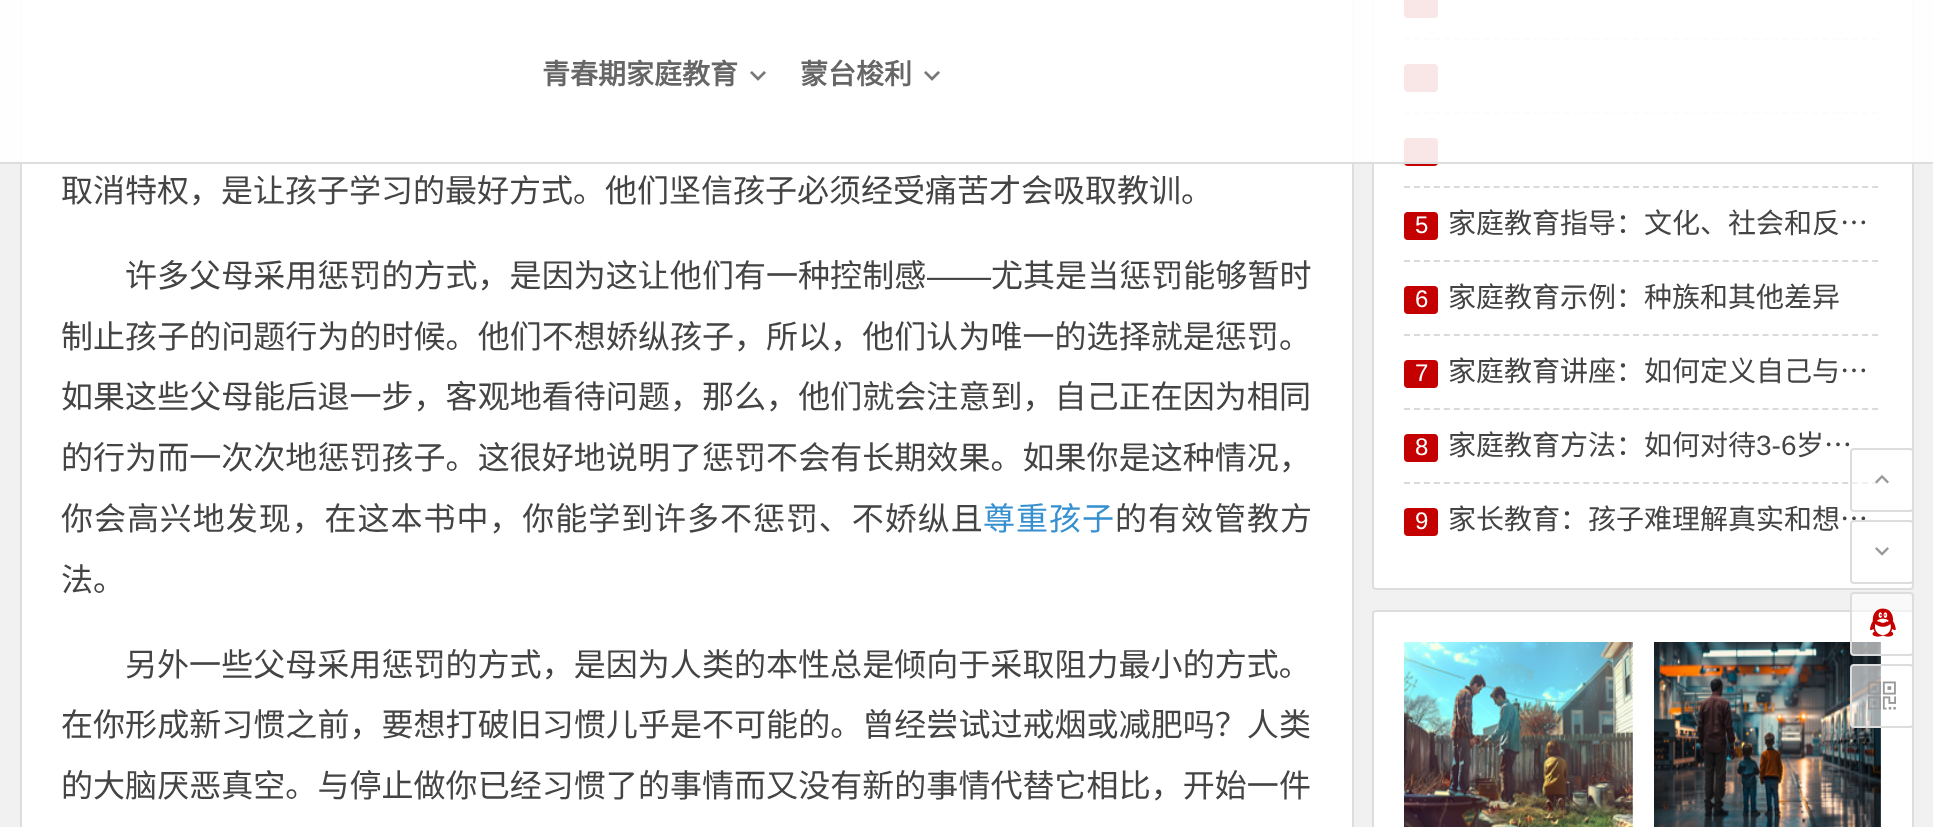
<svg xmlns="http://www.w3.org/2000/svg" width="1933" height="827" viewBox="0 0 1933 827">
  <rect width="100%" height="100%" fill="#f1f1f1"/>
  <rect x="21" y="-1" width="1332" height="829" fill="#ffffff" stroke="#dddddd" stroke-width="2"/>
  <rect x="1373" y="-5" width="540" height="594" rx="3" fill="#ffffff" stroke="#dddddd" stroke-width="2"/>
  <path d="M1404 39H1878" fill="none" stroke="#dadada" stroke-width="2" stroke-dasharray="6 3.96"/>
  <rect x="1404" y="-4" width="34" height="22" rx="4" fill="#c40000"/>
  <path d="M1404 113H1878" fill="none" stroke="#dadada" stroke-width="2" stroke-dasharray="6 3.96"/>
  <rect x="1404" y="64" width="34" height="28" rx="4" fill="#c40000"/>
  <rect x="1404" y="138" width="34" height="28" rx="4" fill="#c40000"/>
  <rect x="0" y="0" width="1933" height="162" fill="#ffffff" fill-opacity="0.9"/>
  <rect x="0" y="162" width="1933" height="2" fill="#dddddd"/>
  <text x="542" y="84" font-family="Noto Sans CJK SC" font-size="28" font-weight="bold" fill="#666666">青春期家庭教育</text>
  <image x="750" y="71" width="16" height="10" href="img1.png"/>
  <text x="800" y="84" font-family="Noto Sans CJK SC" font-size="28" font-weight="bold" fill="#666666">蒙台梭利</text>
  <image x="924" y="71" width="16" height="10" href="img2.png"/>
  <text x="61" y="202" font-family="Noto Sans CJK SC" font-size="32" fill="#444444">取消特权，是让孩子学习的最好方式。他们坚信孩子必须经受痛苦才会吸取教训。</text>
  <text x="125" y="287" font-family="Noto Sans CJK SC" font-size="32" letter-spacing="0.05" fill="#444444">许多父母采用惩罚的方式，是因为这让他们有一种控制感</text>
  <text x="927" y="287" font-family="Liberation Sans" font-size="32" letter-spacing="0.05" fill="#444444">——</text>
  <text x="991" y="287" font-family="Noto Sans CJK SC" font-size="32" letter-spacing="0.05" fill="#444444">尤其是当惩罚能够暂时</text>
  <text x="61" y="348" font-family="Noto Sans CJK SC" font-size="32" letter-spacing="0.05" fill="#444444">制止孩子的问题行为的时候。他们不想娇纵孩子，所以，他们认为唯一的选择就是惩罚。</text>
  <text x="61" y="408" font-family="Noto Sans CJK SC" font-size="32" letter-spacing="0.05" fill="#444444">如果这些父母能后退一步，客观地看待问题，那么，他们就会注意到，自己正在因为相同</text>
  <text x="61" y="469" font-family="Noto Sans CJK SC" font-size="32" letter-spacing="0.05" fill="#444444">的行为而一次次地惩罚孩子。这很好地说明了惩罚不会有长期效果。如果你是这种情况，</text>
  <text x="61" y="530" font-family="Noto Sans CJK SC" font-size="32" letter-spacing="0.95" fill="#444444">你会高兴地发现，在这本书中，你能学到许多不惩罚、不娇纵且</text>
  <text x="983" y="530" font-family="Noto Sans CJK SC" font-size="32" letter-spacing="1" fill="#3690cf">尊重孩子</text>
  <text x="1115" y="530" font-family="Noto Sans CJK SC" font-size="32" letter-spacing="1" fill="#444444">的有效管教方</text>
  <text x="61" y="591" font-family="Noto Sans CJK SC" font-size="32" fill="#444444">法。</text>
  <text x="125" y="676" font-family="Noto Sans CJK SC" font-size="32" letter-spacing="0.05" fill="#444444">另外一些父母采用惩罚的方式，是因为人类的本性总是倾向于采取阻力最小的方式。</text>
  <text x="61" y="736" font-family="Noto Sans CJK SC" font-size="32" letter-spacing="0.05" fill="#444444">在你形成新习惯之前，要想打破旧习惯儿乎是不可能的。曾经尝试过戒烟或减肥吗？人类</text>
  <text x="61" y="797" font-family="Noto Sans CJK SC" font-size="32" letter-spacing="0.05" fill="#444444">的大脑厌恶真空。与停止做你已经习惯了的事情而又没有新的事情代替它相比，开始一件</text>
  <path d="M1404 187H1878" fill="none" stroke="#dadada" stroke-width="2" stroke-dasharray="6 3.96"/>
  <path d="M1404 261H1878" fill="none" stroke="#dadada" stroke-width="2" stroke-dasharray="6 3.96"/>
  <rect x="1404" y="212" width="34" height="28" rx="4" fill="#c40000"/>
  <text x="1415" y="233" font-family="Liberation Sans" font-size="24" fill="#ffffff">5</text>
  <text x="1448" y="233" font-family="Noto Sans CJK SC" font-size="28" fill="#444444">家庭教育指导：文化、社会和反…</text>
  <path d="M1404 335H1878" fill="none" stroke="#dadada" stroke-width="2" stroke-dasharray="6 3.96"/>
  <rect x="1404" y="286" width="34" height="28" rx="4" fill="#c40000"/>
  <text x="1415" y="307" font-family="Liberation Sans" font-size="24" fill="#ffffff">6</text>
  <text x="1448" y="307" font-family="Noto Sans CJK SC" font-size="28" fill="#444444">家庭教育示例：种族和其他差异</text>
  <path d="M1404 409H1878" fill="none" stroke="#dadada" stroke-width="2" stroke-dasharray="6 3.96"/>
  <rect x="1404" y="360" width="34" height="28" rx="4" fill="#c40000"/>
  <text x="1415" y="381" font-family="Liberation Sans" font-size="24" fill="#ffffff">7</text>
  <text x="1448" y="381" font-family="Noto Sans CJK SC" font-size="28" fill="#444444">家庭教育讲座：如何定义自己与…</text>
  <path d="M1404 483H1878" fill="none" stroke="#dadada" stroke-width="2" stroke-dasharray="6 3.96"/>
  <rect x="1404" y="434" width="34" height="28" rx="4" fill="#c40000"/>
  <text x="1415" y="455" font-family="Liberation Sans" font-size="24" fill="#ffffff">8</text>
  <text x="1448" y="455" font-family="Noto Sans CJK SC" font-size="28" fill="#444444">家庭教育方法：如何对待</text>
  <text x="1756" y="455" font-family="Liberation Sans" font-size="28" fill="#444444">3-6</text>
  <text x="1796" y="455" font-family="Noto Sans CJK SC" font-size="28" fill="#444444">岁…</text>
  <rect x="1404" y="508" width="34" height="28" rx="4" fill="#c40000"/>
  <text x="1415" y="529" font-family="Liberation Sans" font-size="24" fill="#ffffff">9</text>
  <text x="1448" y="529" font-family="Noto Sans CJK SC" font-size="28" fill="#444444">家长教育：孩子难理解真实和想…</text>
  <rect x="1373" y="611" width="540" height="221" rx="3" fill="#ffffff" stroke="#dddddd" stroke-width="2"/>
  <image x="1404" y="642" width="229" height="185" href="img3.png"/>
  <image x="1654" y="642" width="227" height="185" href="img4.png"/>
  <rect x="1851" y="449" width="62" height="62" rx="3" fill="#ffffff" fill-opacity="0.6" stroke="#dddddd" stroke-width="2"/>
  <image x="1875" y="475" width="14" height="9" href="img5.png"/>
  <rect x="1851" y="521" width="62" height="62" rx="3" fill="#ffffff" fill-opacity="0.6" stroke="#dddddd" stroke-width="2"/>
  <image x="1875" y="547" width="14" height="9" href="img6.png"/>
  <rect x="1851" y="593" width="62" height="62" rx="3" fill="#ffffff" fill-opacity="0.6" stroke="#dddddd" stroke-width="2"/>
  <image x="1870" y="608" width="26" height="29" href="img7.png"/>
  <rect x="1851" y="665" width="62" height="62" rx="3" fill="#ffffff" fill-opacity="0.6" stroke="#dddddd" stroke-width="2"/>
  <image x="1868" y="681" width="28" height="29" href="img8.png"/>
</svg>
